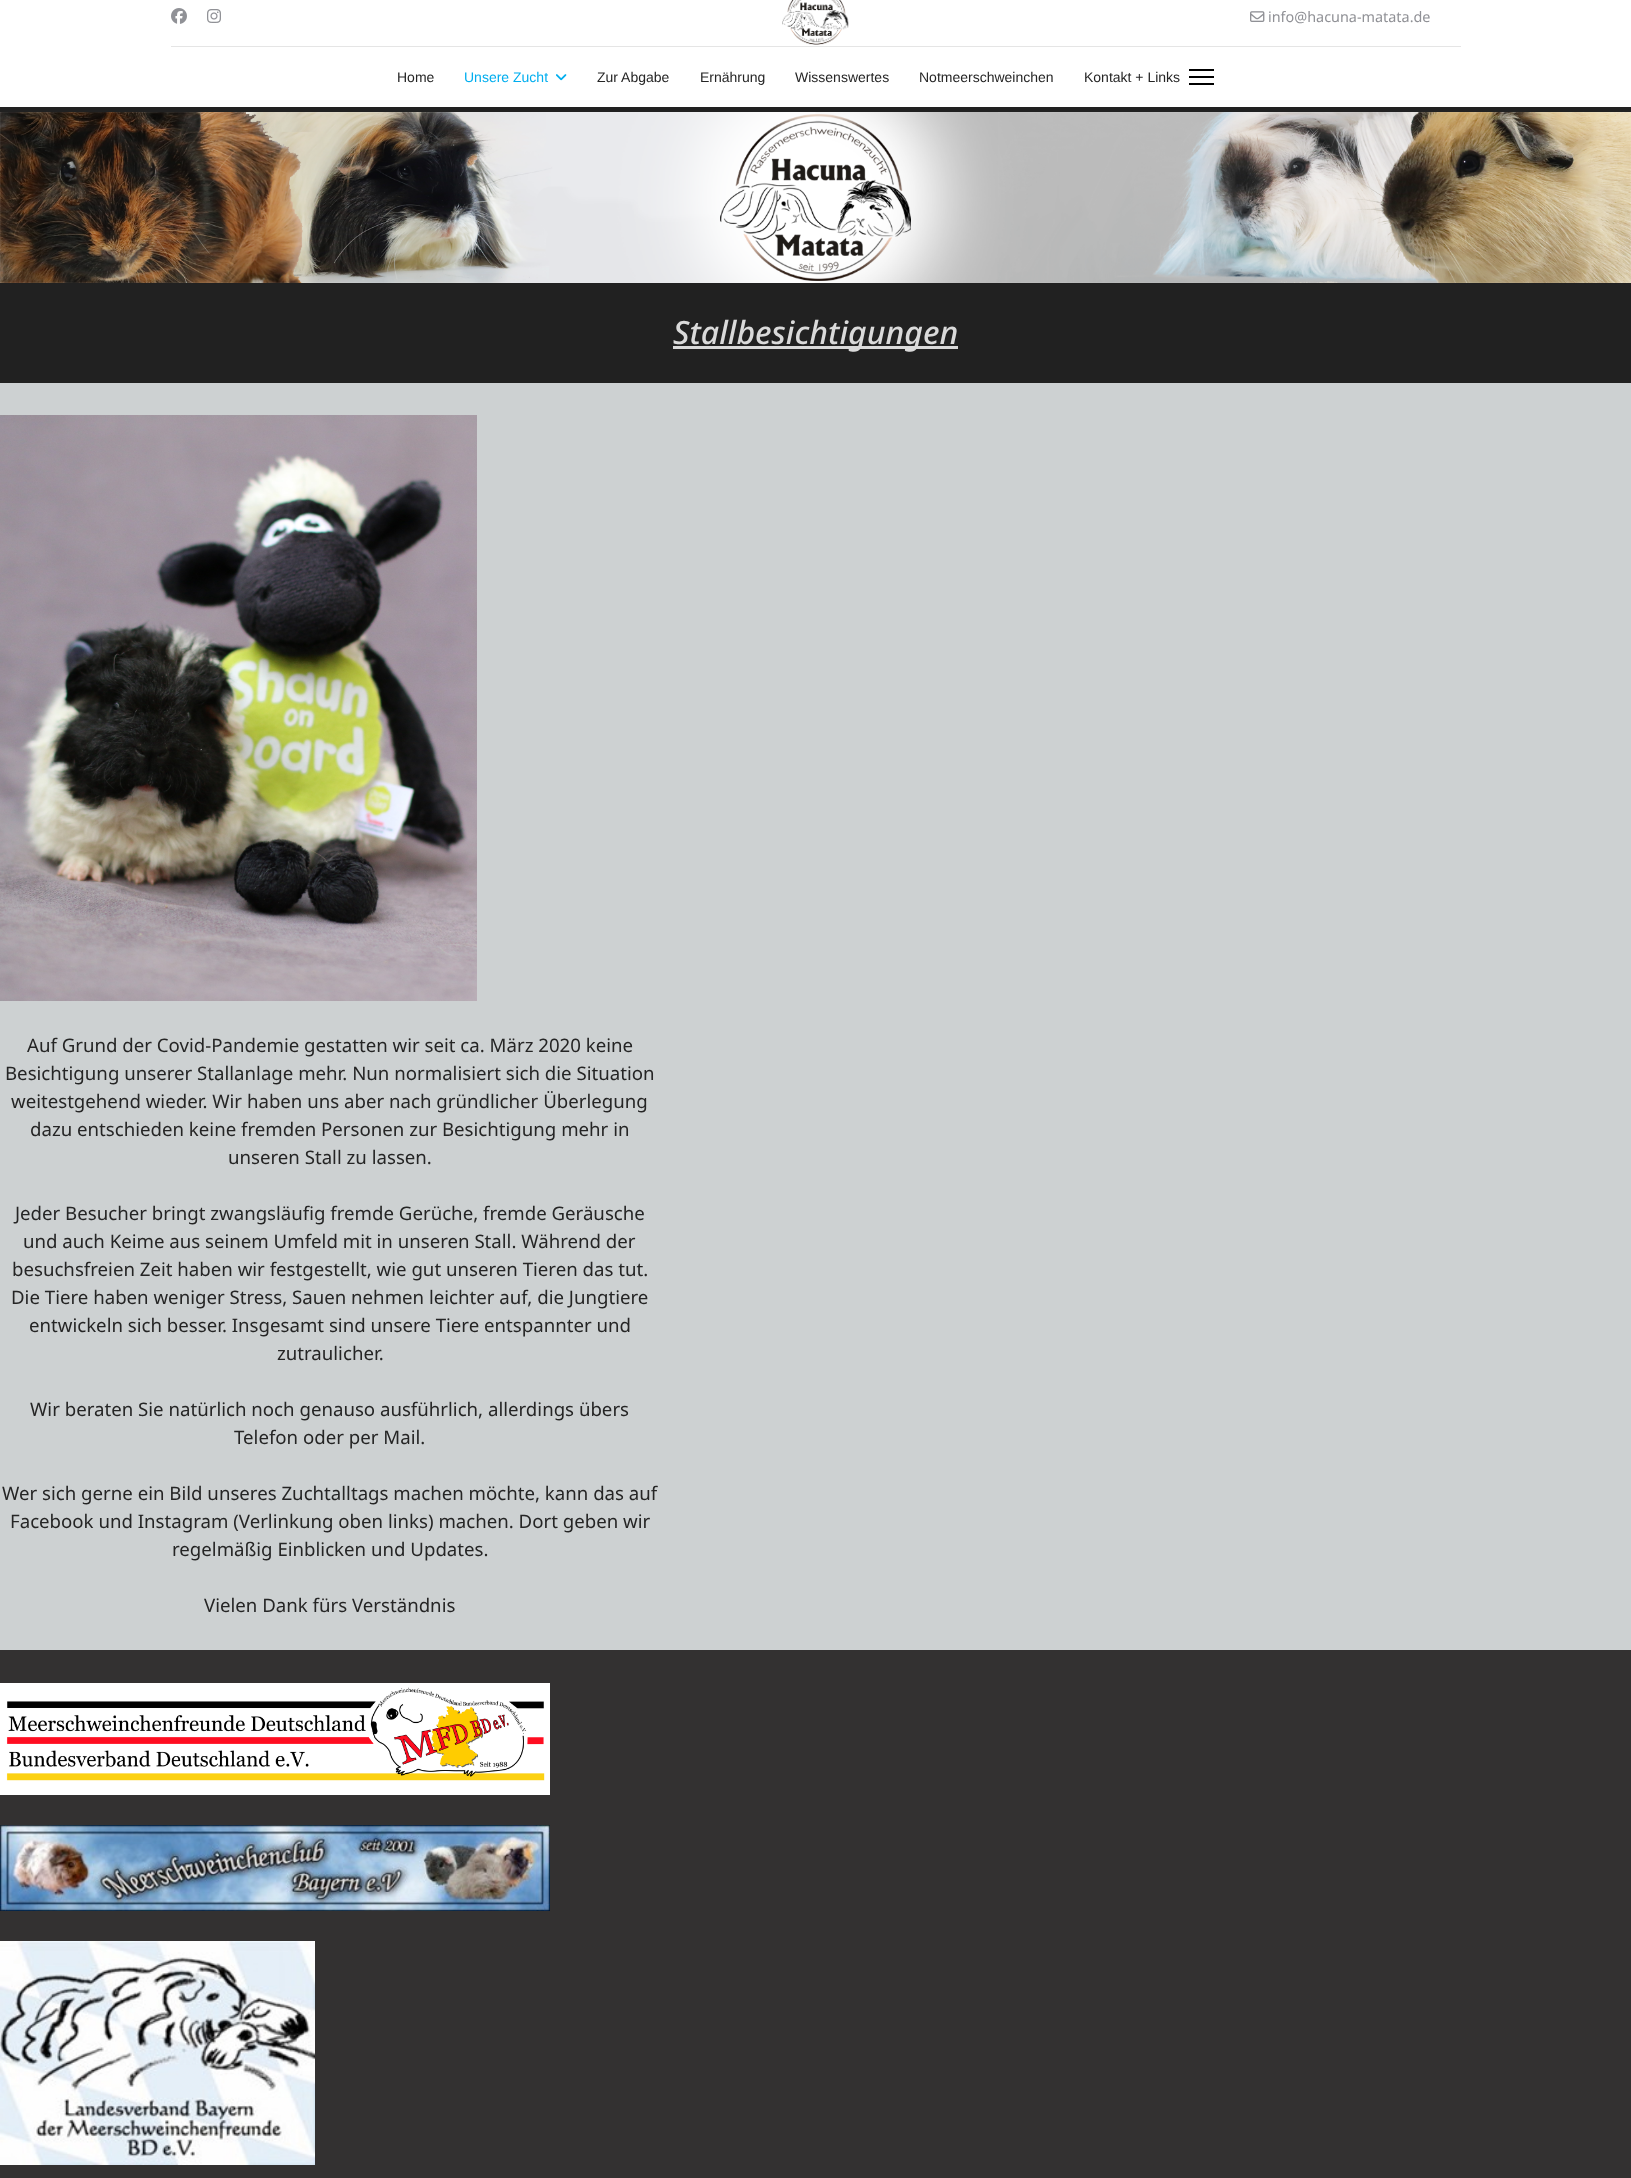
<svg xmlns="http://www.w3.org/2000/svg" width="1631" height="2178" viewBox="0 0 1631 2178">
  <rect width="100%" height="100%" fill="#ffffff"/>
  <rect x="171" y="46" width="1290" height="1" fill="#e5e5e5"/>
  <image x="171" y="8" width="16" height="16" href="img1.png"/>
  <image x="207" y="9" width="14" height="14" href="img2.png"/>
  <image x="782" y="0" width="67" height="45" href="img3.png"/>
  <image x="1250" y="11" width="15" height="11" href="img4.png"/>
  <text x="1268" y="22" font-family="Noto Sans" font-size="14.4" fill="#909196">info@hacuna-matata.de</text>
  <text x="397" y="82" font-family="Liberation Sans" font-size="14" fill="#252525">Home</text>
  <text x="464" y="82" font-family="Liberation Sans" font-size="14" fill="#00aeef">Unsere Zucht</text>
  <image x="556" y="74" width="11" height="7" href="img5.png"/>
  <text x="597" y="82" font-family="Liberation Sans" font-size="14" fill="#252525">Zur Abgabe</text>
  <text x="700" y="82" font-family="Liberation Sans" font-size="14" fill="#252525">Ernährung</text>
  <text x="795" y="82" font-family="Liberation Sans" font-size="14" fill="#252525">Wissenswertes</text>
  <text x="919" y="82" font-family="Liberation Sans" font-size="14" fill="#252525">Notmeerschweinchen</text>
  <text x="1084" y="82" font-family="Liberation Sans" font-size="14" fill="#252525">Kontakt + Links</text>
  <rect x="1189" y="69" width="25" height="2" fill="#000000"/>
  <rect x="1189" y="76" width="25" height="2" fill="#000000"/>
  <rect x="1189" y="83" width="25" height="2" fill="#000000"/>
  <rect x="0" y="107" width="1631" height="276" fill="#212121"/>
  <image x="0" y="112" width="1631" height="171" href="img6.png"/>
  <rect x="673" y="346" width="285" height="3" fill="#dadada"/>
  <text x="673" y="344" font-family="Noto Sans" font-size="32" font-weight="500" font-style="italic" fill="#dadada">Stallbesichtigungen</text>
  <rect x="0" y="383" width="1631" height="1267" fill="#cdd1d2"/>
  <image x="0" y="415" width="477" height="586" href="img7.png"/>
  <text x="27" y="1052" font-family="Noto Sans" font-size="18.65" fill="#252525">Auf Grund der Covid-Pandemie gestatten wir seit ca. März 2020 keine</text>
  <text x="5" y="1080" font-family="Noto Sans" font-size="18.65" fill="#252525">Besichtigung unserer Stallanlage mehr. Nun normalisiert sich die Situation</text>
  <text x="11" y="1108" font-family="Noto Sans" font-size="18.65" fill="#252525">weitestgehend wieder. Wir haben uns aber nach gründlicher Überlegung</text>
  <text x="30" y="1136" font-family="Noto Sans" font-size="18.65" fill="#252525">dazu entschieden keine fremden Personen zur Besichtigung mehr in</text>
  <text x="228" y="1164" font-family="Noto Sans" font-size="18.65" fill="#252525">unseren Stall zu lassen.</text>
  <text x="15" y="1220" font-family="Noto Sans" font-size="18.65" fill="#252525">Jeder Besucher bringt zwangsläufig fremde Gerüche, fremde Geräusche</text>
  <text x="23" y="1248" font-family="Noto Sans" font-size="18.65" fill="#252525">und auch Keime aus seinem Umfeld mit in unseren Stall. Während der</text>
  <text x="12" y="1276" font-family="Noto Sans" font-size="18.65" fill="#252525">besuchsfreien Zeit haben wir festgestellt, wie gut unseren Tieren das tut.</text>
  <text x="11" y="1304" font-family="Noto Sans" font-size="18.65" fill="#252525">Die Tiere haben weniger Stress, Sauen nehmen leichter auf, die Jungtiere</text>
  <text x="29" y="1332" font-family="Noto Sans" font-size="18.65" fill="#252525">entwickeln sich besser. Insgesamt sind unsere Tiere entspannter und</text>
  <text x="277" y="1360" font-family="Noto Sans" font-size="18.65" fill="#252525">zutraulicher.</text>
  <text x="30" y="1416" font-family="Noto Sans" font-size="18.65" fill="#252525">Wir beraten Sie natürlich noch genauso ausführlich, allerdings übers</text>
  <text x="234" y="1444" font-family="Noto Sans" font-size="18.65" fill="#252525">Telefon oder per Mail.</text>
  <text x="2" y="1500" font-family="Noto Sans" font-size="18.65" fill="#252525">Wer sich gerne ein Bild unseres Zuchtalltags machen möchte, kann das auf</text>
  <text x="10" y="1528" font-family="Noto Sans" font-size="18.65" fill="#252525">Facebook und Instagram (Verlinkung oben links) machen. Dort geben wir</text>
  <text x="172" y="1556" font-family="Noto Sans" font-size="18.65" fill="#252525">regelmäßig Einblicken und Updates.</text>
  <text x="204" y="1612" font-family="Noto Sans" font-size="18.65" fill="#252525">Vielen Dank fürs Verständnis</text>
  <rect x="0" y="1650" width="1631" height="528" fill="#333131"/>
  <image x="0" y="1683" width="550" height="112" href="img8.png"/>
  <image x="0" y="1825" width="550" height="86" href="img9.png"/>
  <image x="0" y="1941" width="315" height="224" href="img10.png"/>
</svg>
